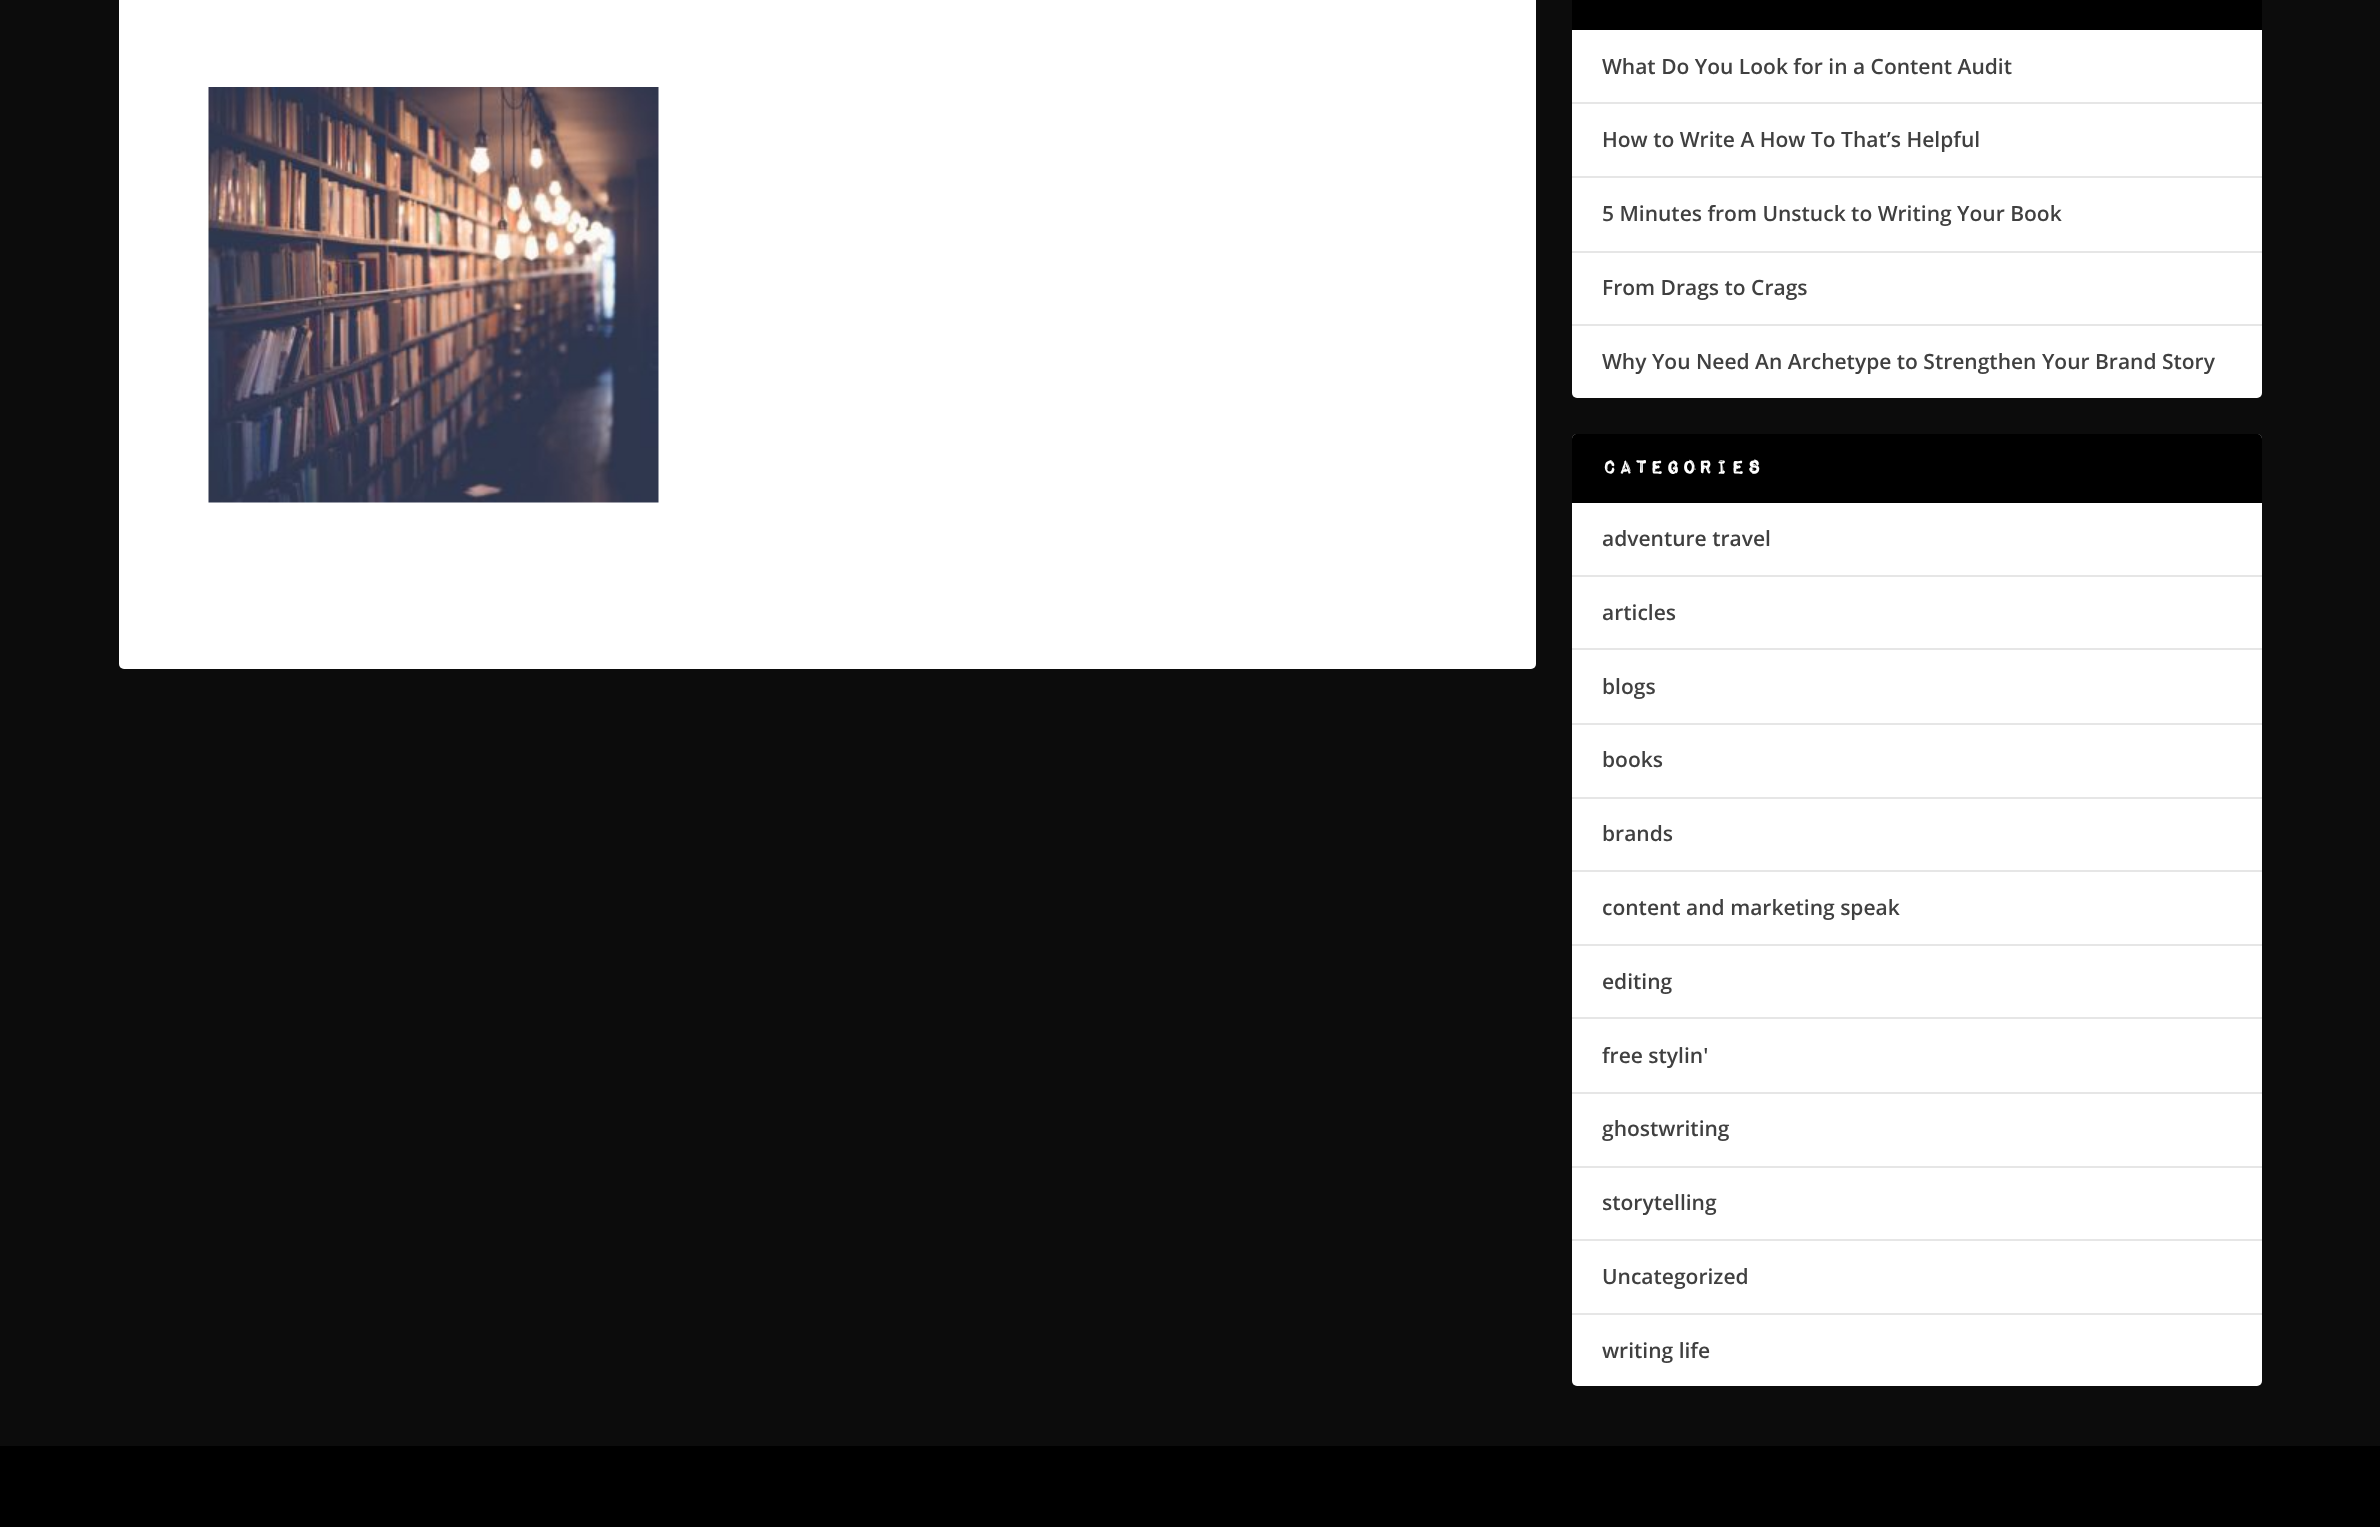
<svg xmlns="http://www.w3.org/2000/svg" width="2380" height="1527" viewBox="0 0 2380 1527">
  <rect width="100%" height="100%" fill="#0c0c0c"/>
  <rect x="119" y="-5" width="1417" height="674" rx="5" fill="#ffffff"/>
  <image x="208" y="87" width="451" height="416" href="img1.png"/>
  <rect x="1572" y="-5" width="690" height="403" rx="5" fill="#ffffff"/>
  <rect x="1572" y="0" width="690" height="30" fill="#000000"/>
  <rect x="1572" y="102" width="690" height="2" fill="#e6e6e6"/>
  <text x="1602" y="74" font-family="Open Sans" font-size="21" font-weight="600" fill="#404040">What Do You Look for in a Content Audit</text>
  <rect x="1572" y="176" width="690" height="2" fill="#e6e6e6"/>
  <text x="1602" y="147" font-family="Open Sans" font-size="21" font-weight="600" fill="#404040">How to Write A How To That’s Helpful</text>
  <rect x="1572" y="251" width="690" height="2" fill="#e6e6e6"/>
  <text x="1602" y="221" font-family="Open Sans" font-size="21" font-weight="600" fill="#404040">5 Minutes from Unstuck to Writing Your Book</text>
  <rect x="1572" y="324" width="690" height="2" fill="#e6e6e6"/>
  <text x="1602" y="295" font-family="Open Sans" font-size="21" font-weight="600" fill="#404040">From Drags to Crags</text>
  <text x="1602" y="369" font-family="Open Sans" font-size="21" font-weight="600" fill="#404040">Why You Need An Archetype to Strengthen Your Brand Story</text>
  <rect x="1572" y="434" width="690" height="952" rx="5" fill="#ffffff"/>
  <path d="M1577 434H2257C2260 434 2262 436 2262 439V503H1572V439C1572 436 1574 434 1577 434Z" fill="#000000"/>
  <text x="1602" y="474" font-family="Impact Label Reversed" font-size="24" font-weight="bold" letter-spacing="1.75" fill="#ffffff">CATEGORIES</text>
  <rect x="1572" y="575" width="690" height="2" fill="#e6e6e6"/>
  <text x="1602" y="546" font-family="Open Sans" font-size="21" font-weight="600" fill="#404040">adventure travel</text>
  <rect x="1572" y="648" width="690" height="2" fill="#e6e6e6"/>
  <text x="1602" y="620" font-family="Open Sans" font-size="21" font-weight="600" fill="#404040">articles</text>
  <rect x="1572" y="723" width="690" height="2" fill="#e6e6e6"/>
  <text x="1602" y="694" font-family="Open Sans" font-size="21" font-weight="600" fill="#404040">blogs</text>
  <rect x="1572" y="797" width="690" height="2" fill="#e6e6e6"/>
  <text x="1602" y="767" font-family="Open Sans" font-size="21" font-weight="600" fill="#404040">books</text>
  <rect x="1572" y="870" width="690" height="2" fill="#e6e6e6"/>
  <text x="1602" y="841" font-family="Open Sans" font-size="21" font-weight="600" fill="#404040">brands</text>
  <rect x="1572" y="944" width="690" height="2" fill="#e6e6e6"/>
  <text x="1602" y="915" font-family="Open Sans" font-size="21" font-weight="600" fill="#404040">content and marketing speak</text>
  <rect x="1572" y="1017" width="690" height="2" fill="#e6e6e6"/>
  <text x="1602" y="989" font-family="Open Sans" font-size="21" font-weight="600" fill="#404040">editing</text>
  <rect x="1572" y="1092" width="690" height="2" fill="#e6e6e6"/>
  <text x="1602" y="1063" font-family="Open Sans" font-size="21" font-weight="600" fill="#404040">free stylin'</text>
  <rect x="1572" y="1166" width="690" height="2" fill="#e6e6e6"/>
  <text x="1602" y="1136" font-family="Open Sans" font-size="21" font-weight="600" fill="#404040">ghostwriting</text>
  <rect x="1572" y="1239" width="690" height="2" fill="#e6e6e6"/>
  <text x="1602" y="1210" font-family="Open Sans" font-size="21" font-weight="600" fill="#404040">storytelling</text>
  <rect x="1572" y="1313" width="690" height="2" fill="#e6e6e6"/>
  <text x="1602" y="1284" font-family="Open Sans" font-size="21" font-weight="600" fill="#404040">Uncategorized</text>
  <text x="1602" y="1358" font-family="Open Sans" font-size="21" font-weight="600" fill="#404040">writing life</text>
  <rect x="0" y="1446" width="2380" height="81" fill="#000000"/>
</svg>
